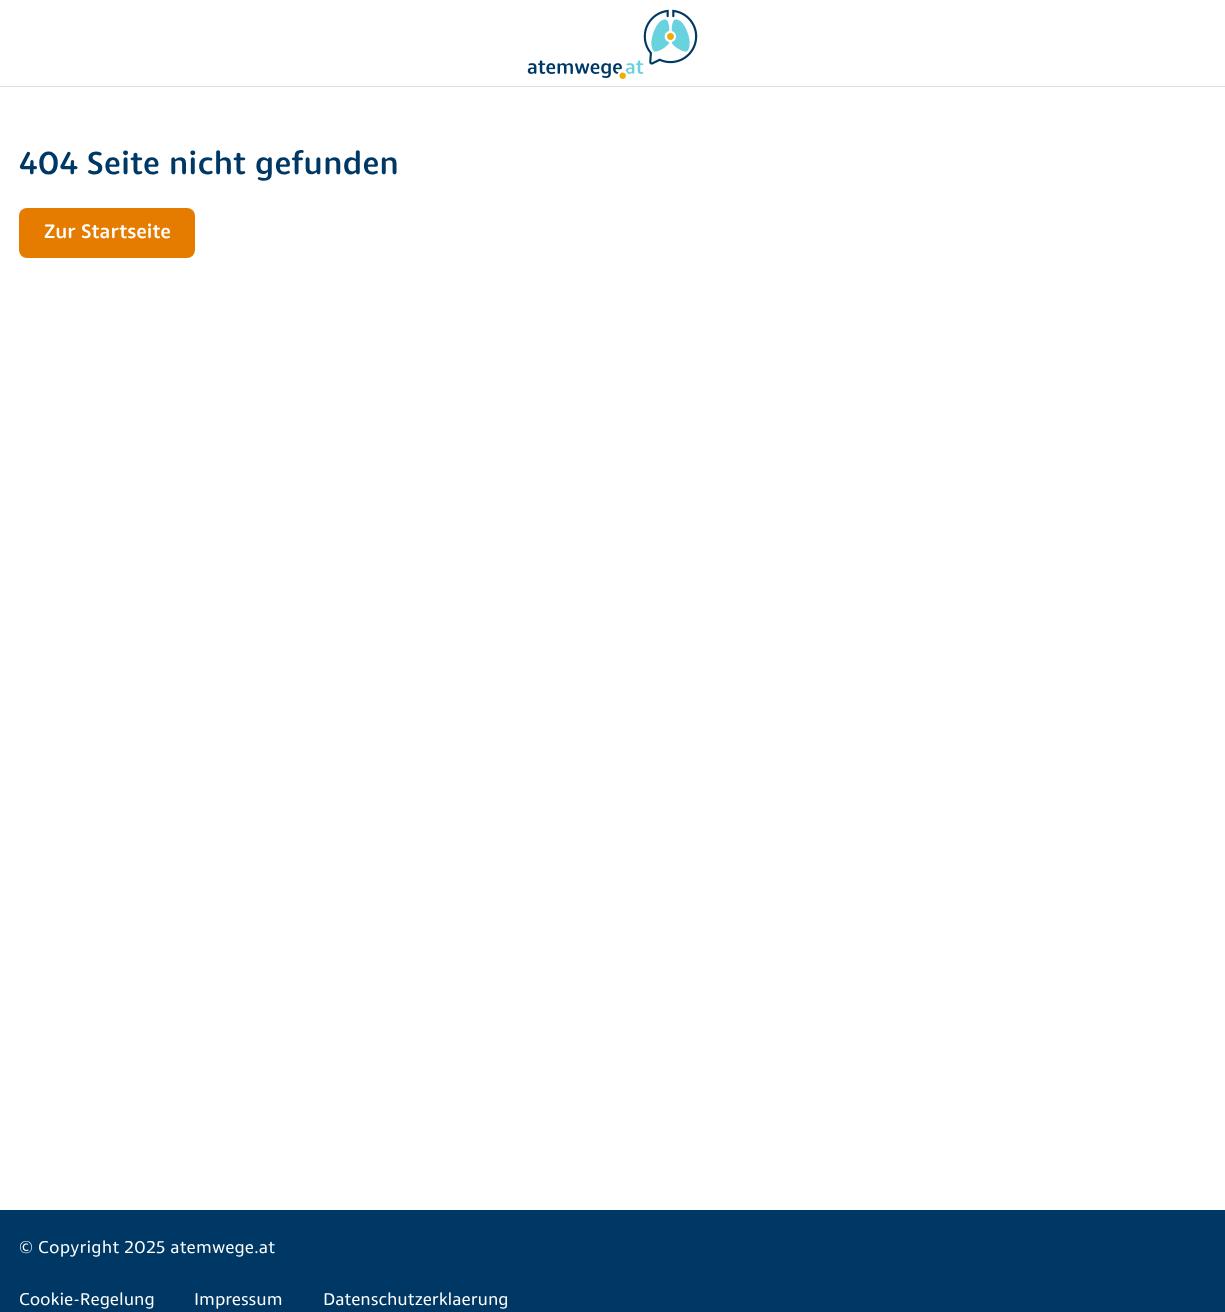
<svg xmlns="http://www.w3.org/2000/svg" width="1225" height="1312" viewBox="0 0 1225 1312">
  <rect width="100%" height="100%" fill="#ffffff"/>
  <rect x="0" y="86" width="1225" height="1" fill="#e0e0e0"/>
  <image x="527" y="9" width="171" height="70" href="img1.png"/>
  <text x="19" y="174" font-family="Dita" font-size="32.5" font-weight="500" fill="#003865">404 Seite nicht gefunden</text>
  <rect x="19" y="208" width="176" height="50" rx="8" fill="#e57c00"/>
  <text x="44" y="238" font-family="Dita" font-size="20" font-weight="500" fill="#ffffff">Zur Startseite</text>
  <rect x="0" y="1210" width="1225" height="102" fill="#003865"/>
  <text x="19" y="1253" font-family="Dita" font-size="17.5" letter-spacing="0.2" fill="#ffffff">© Copyright 2025 atemwege.at</text>
  <text x="19" y="1305" font-family="Dita" font-size="17.5" fill="#ffffff">Cookie-Regelung</text>
  <text x="194" y="1305" font-family="Dita" font-size="17.5" fill="#ffffff">Impressum</text>
  <text x="323" y="1305" font-family="Dita" font-size="17.5" fill="#ffffff">Datenschutzerklaerung</text>
</svg>
